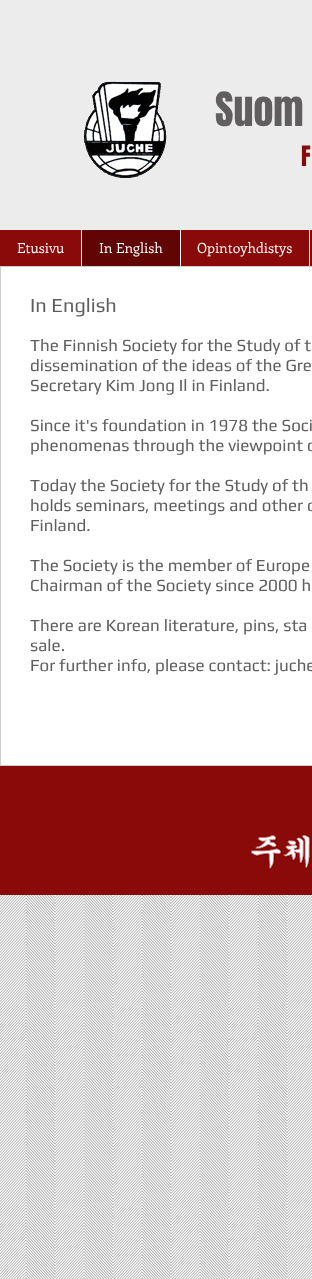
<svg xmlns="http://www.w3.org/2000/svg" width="312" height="1279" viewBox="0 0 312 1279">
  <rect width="100%" height="100%" fill="#ffffff"/>
  <rect x="0" y="0" width="312" height="230" fill="#ececec"/>
  <image x="83" y="81" width="84" height="97" href="img1.png"/>
  <text x="215" y="126" font-family="Anton" font-size="40" fill="#605e5e">Suom</text>
  <text x="301" y="166" font-family="Anton" font-size="24" fill="#8a0a0a">F</text>
  <rect x="0" y="230" width="312" height="36" fill="#8a0a0a"/>
  <text x="17" y="253" font-family="Enriqueta" font-size="14" fill="#ffffff">Etusivu</text>
  <rect x="82" y="230" width="98" height="36" fill="#610404"/>
  <rect x="81" y="230" width="1" height="36" fill="#ffffff"/>
  <text x="99" y="253" font-family="Enriqueta" font-size="14" fill="#ffffff">In English</text>
  <rect x="180" y="230" width="1" height="36" fill="#ffffff"/>
  <text x="197" y="253" font-family="Enriqueta" font-size="14" fill="#ffffff">Opintoyhdistys</text>
  <rect x="309" y="230" width="1" height="36" fill="#ffffff"/>
  <rect x="0.5" y="266.5" width="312" height="499" fill="none" stroke="#cccccc"/>
  <text x="30" y="312" font-family="Play" font-size="20" fill="#605e5e">In English</text>
  <text x="30" y="351" font-family="Play" font-size="17" fill="#605e5e">The Finnish Society for the Study of t</text>
  <text x="30" y="371" font-family="Play" font-size="17" fill="#605e5e">dissemination of the ideas of the Gre</text>
  <text x="30" y="391" font-family="Play" font-size="17" fill="#605e5e">Secretary Kim Jong Il in Finland.</text>
  <text x="30" y="431" font-family="Play" font-size="17" fill="#605e5e">Since it's foundation in 1978 the Soci</text>
  <text x="30" y="451" font-family="Play" font-size="17" fill="#605e5e">phenomenas through the viewpoint o</text>
  <text x="30" y="491" font-family="Play" font-size="17" fill="#605e5e">Today the Society for the Study of th</text>
  <text x="30" y="511" font-family="Play" font-size="17" fill="#605e5e">holds seminars, meetings and other o</text>
  <text x="30" y="531" font-family="Play" font-size="17" fill="#605e5e">Finland.</text>
  <text x="30" y="571" font-family="Play" font-size="17" fill="#605e5e">The Society is the member of Europe</text>
  <text x="30" y="591" font-family="Play" font-size="17" fill="#605e5e">Chairman of the Society since 2000 h</text>
  <text x="30" y="631" font-family="Play" font-size="17" fill="#605e5e">There are Korean literature, pins, sta</text>
  <text x="30" y="651" font-family="Play" font-size="17" fill="#605e5e">sale.</text>
  <text x="30" y="671" font-family="Play" font-size="17" fill="#605e5e">For further info, please contact: juche</text>
  <rect x="0" y="766" width="312" height="129" fill="#8a0a0a"/>
  <image x="250" y="834" width="61" height="36" href="img2.png"/>
  <image x="0" y="895" width="312" height="384" href="img3.png"/>
</svg>
